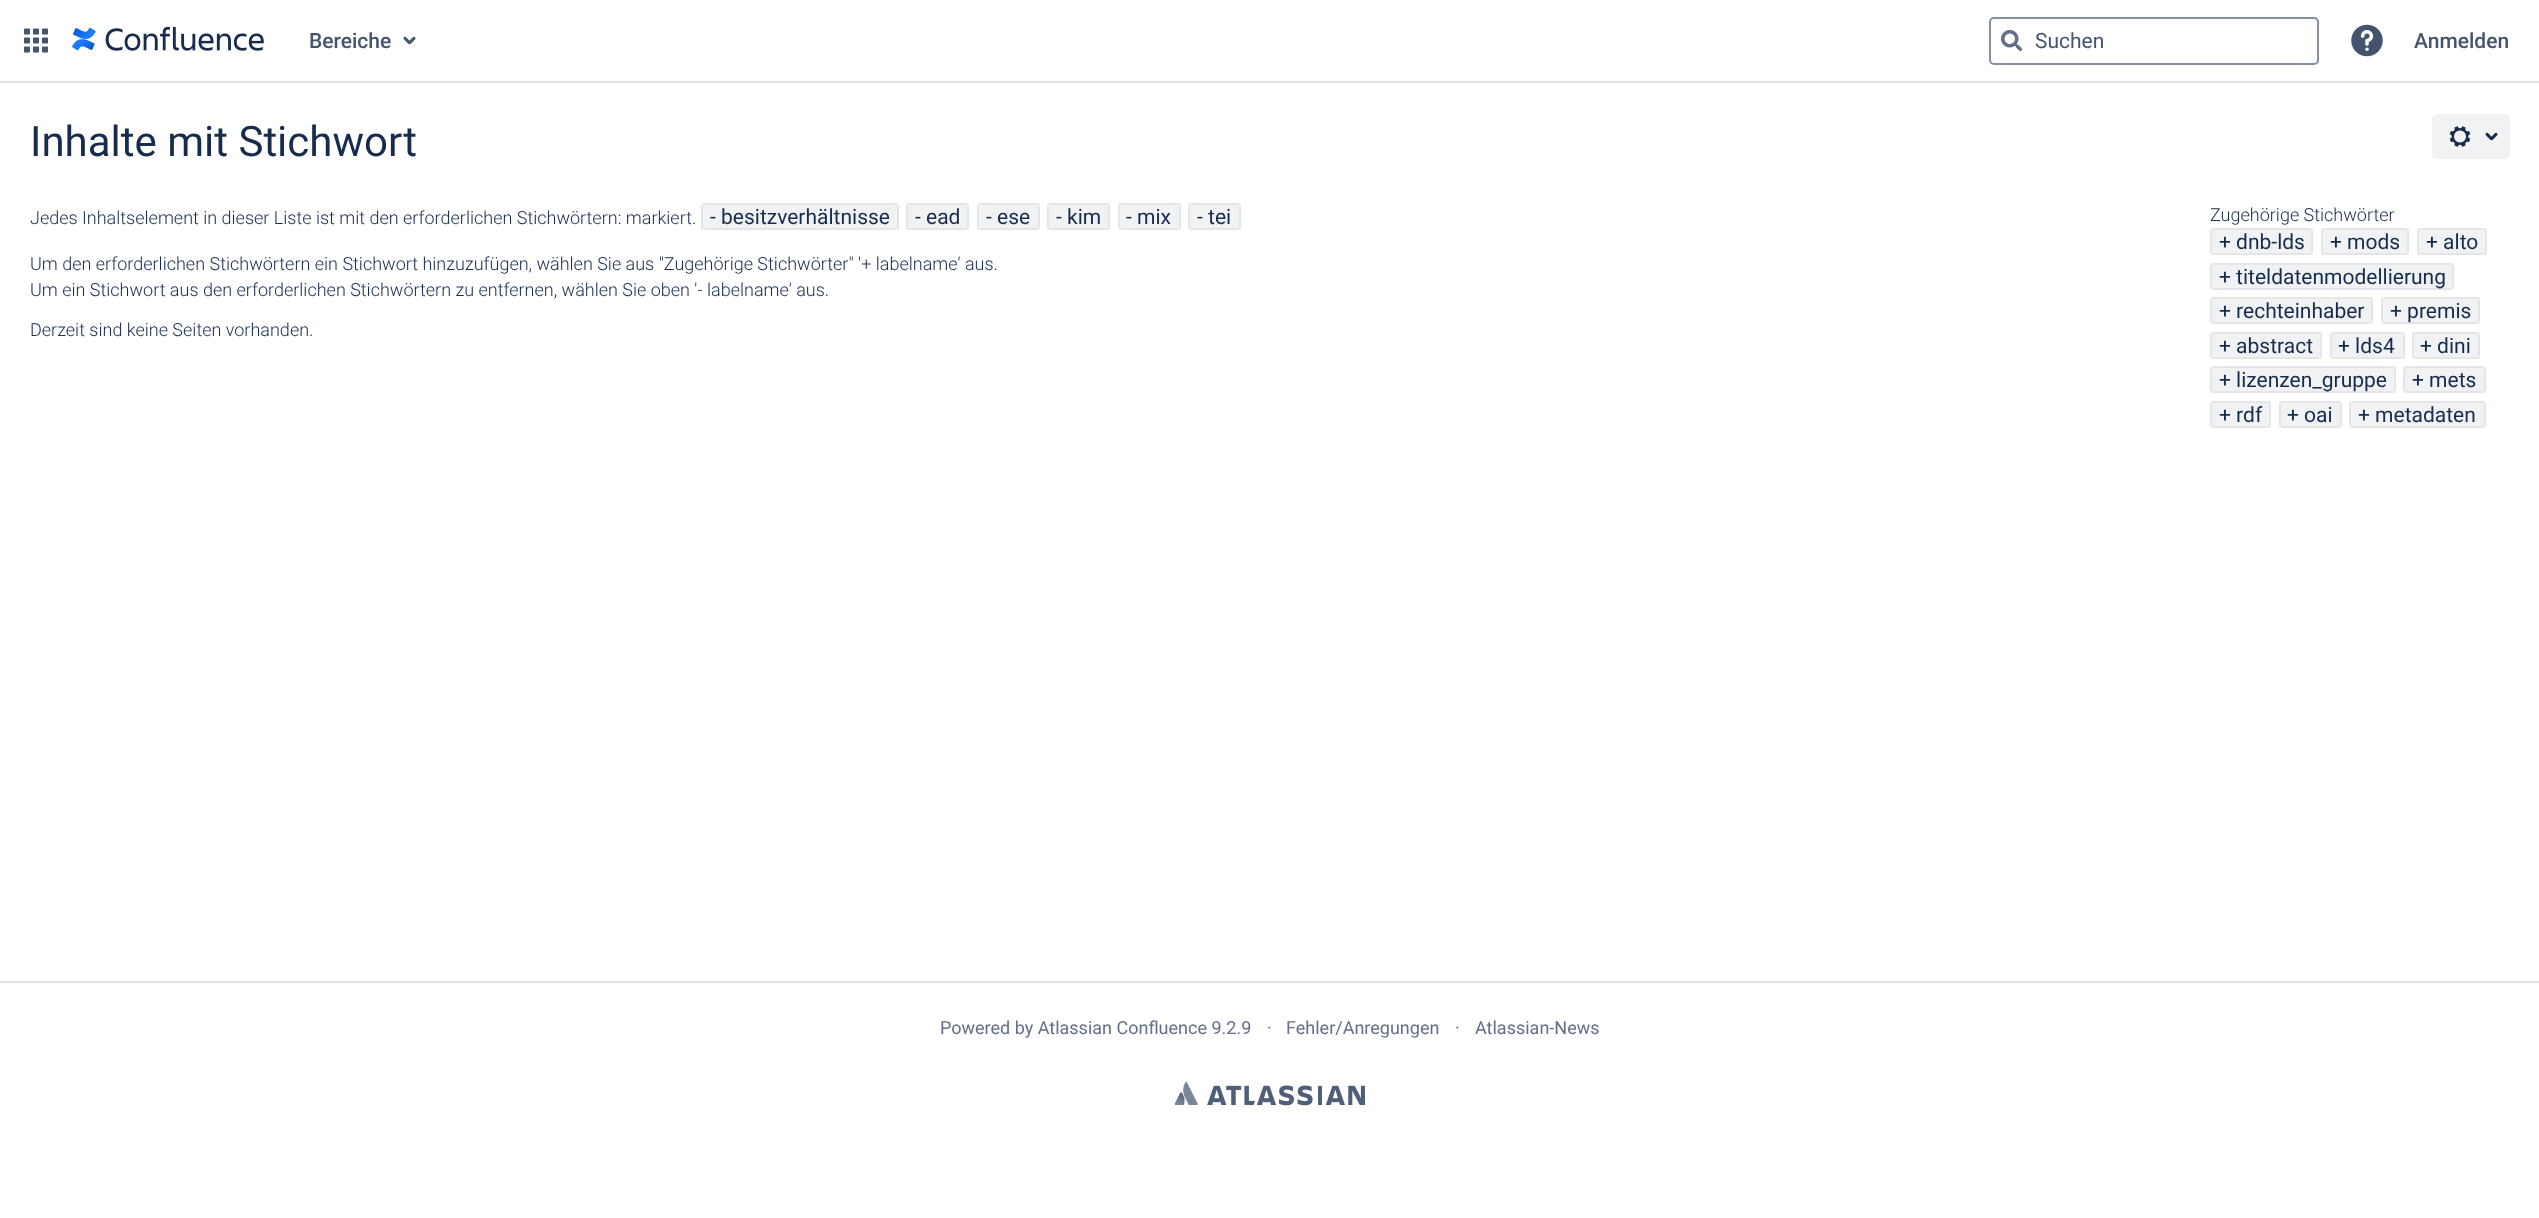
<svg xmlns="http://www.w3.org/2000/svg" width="2539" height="1218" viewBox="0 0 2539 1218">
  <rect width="100%" height="100%" fill="#ffffff"/>
  <rect x="0" y="81" width="2539" height="2" fill="#dde0e5"/>
  <image x="24" y="28" width="24" height="25" href="img1.png"/>
  <image x="72" y="26" width="192" height="25" href="img2.png"/>
  <text x="309" y="48" font-family="Roboto" font-size="21" font-weight="500" fill="#44546f">Bereiche</text>
  <image x="403" y="36" width="13" height="9" href="img3.png"/>
  <rect x="1990" y="18" width="328" height="46" rx="4" fill="none" stroke="#8590a2" stroke-width="2"/>
  <image x="2001" y="30" width="21" height="21" href="img4.png"/>
  <text x="2035" y="48" font-family="Roboto" font-size="21" fill="#44546f">Suchen</text>
  <image x="2351" y="24" width="32" height="33" href="img5.png"/>
  <text x="2414" y="48" font-family="Roboto" font-size="21" font-weight="500" fill="#44546f">Anmelden</text>
  <rect x="0" y="981" width="2539" height="2" fill="#dde0e5"/>
  <text x="30" y="156" font-family="Roboto" font-size="42" fill="#172b4d">Inhalte mit Stichwort</text>
  <rect x="2432" y="114" width="78" height="45" rx="5" fill="#f0f2f4"/>
  <image x="2449" y="126" width="22" height="21" href="img6.png"/>
  <image x="2485" y="132" width="13" height="9" href="img7.png"/>
  <text x="30" y="224" font-family="Roboto" font-size="18" font-weight="300" fill="#172b4d">Jedes Inhaltselement in dieser Liste ist mit den erforderlichen Stichwörtern: markiert.</text>
  <rect x="701" y="203" width="198" height="27" rx="5" fill="#f0f2f4"/>
  <rect x="702" y="204" width="196" height="25" fill="none" stroke="#091e42" stroke-opacity="0.06" stroke-width="2"/>
  <text x="710" y="224" font-family="Roboto" font-size="21" fill="#172b4d">- besitzverhältnisse</text>
  <rect x="906" y="203" width="63" height="27" rx="5" fill="#f0f2f4"/>
  <rect x="907" y="204" width="61" height="25" fill="none" stroke="#091e42" stroke-opacity="0.06" stroke-width="2"/>
  <text x="915" y="224" font-family="Roboto" font-size="21" fill="#172b4d">- ead</text>
  <rect x="977" y="203" width="63" height="27" rx="5" fill="#f0f2f4"/>
  <rect x="978" y="204" width="61" height="25" fill="none" stroke="#091e42" stroke-opacity="0.06" stroke-width="2"/>
  <text x="986" y="224" font-family="Roboto" font-size="21" fill="#172b4d">- ese</text>
  <rect x="1047" y="203" width="63" height="27" rx="5" fill="#f0f2f4"/>
  <rect x="1048" y="204" width="61" height="25" fill="none" stroke="#091e42" stroke-opacity="0.06" stroke-width="2"/>
  <text x="1056" y="224" font-family="Roboto" font-size="21" fill="#172b4d">- kim</text>
  <rect x="1118" y="203" width="63" height="27" rx="5" fill="#f0f2f4"/>
  <rect x="1119" y="204" width="61" height="25" fill="none" stroke="#091e42" stroke-opacity="0.06" stroke-width="2"/>
  <text x="1126" y="224" font-family="Roboto" font-size="21" fill="#172b4d">- mix</text>
  <rect x="1188" y="203" width="53" height="27" rx="5" fill="#f0f2f4"/>
  <rect x="1189" y="204" width="51" height="25" fill="none" stroke="#091e42" stroke-opacity="0.06" stroke-width="2"/>
  <text x="1197" y="224" font-family="Roboto" font-size="21" fill="#172b4d">- tei</text>
  <text x="30" y="270" font-family="Roboto" font-size="18" font-weight="300" fill="#172b4d">Um den erforderlichen Stichwörtern ein Stichwort hinzuzufügen, wählen Sie aus "Zugehörige Stichwörter" '+ labelname' aus.</text>
  <text x="30" y="296" font-family="Roboto" font-size="18" font-weight="300" fill="#172b4d">Um ein Stichwort aus den erforderlichen Stichwörtern zu entfernen, wählen Sie oben '- labelname' aus.</text>
  <text x="30" y="336" font-family="Roboto" font-size="18" font-weight="300" fill="#172b4d">Derzeit sind keine Seiten vorhanden.</text>
  <text x="2210" y="221" font-family="Roboto" font-size="18" font-weight="300" fill="#172b4d">Zugehörige Stichwörter</text>
  <rect x="2210" y="228" width="103" height="27" rx="5" fill="#f0f2f4"/>
  <rect x="2211" y="229" width="101" height="25" fill="none" stroke="#091e42" stroke-opacity="0.06" stroke-width="2"/>
  <text x="2219" y="249" font-family="Roboto" font-size="21" fill="#172b4d">+ dnb-lds</text>
  <rect x="2321" y="228" width="88" height="27" rx="5" fill="#f0f2f4"/>
  <rect x="2322" y="229" width="86" height="25" fill="none" stroke="#091e42" stroke-opacity="0.06" stroke-width="2"/>
  <text x="2330" y="249" font-family="Roboto" font-size="21" fill="#172b4d">+ mods</text>
  <rect x="2417" y="228" width="70" height="27" rx="5" fill="#f0f2f4"/>
  <rect x="2418" y="229" width="68" height="25" fill="none" stroke="#091e42" stroke-opacity="0.06" stroke-width="2"/>
  <text x="2426" y="249" font-family="Roboto" font-size="21" fill="#172b4d">+ alto</text>
  <rect x="2210" y="263" width="244" height="27" rx="5" fill="#f0f2f4"/>
  <rect x="2211" y="264" width="242" height="25" fill="none" stroke="#091e42" stroke-opacity="0.06" stroke-width="2"/>
  <text x="2219" y="284" font-family="Roboto" font-size="21" fill="#172b4d">+ titeldatenmodellierung</text>
  <rect x="2210" y="297" width="163" height="27" rx="5" fill="#f0f2f4"/>
  <rect x="2211" y="298" width="161" height="25" fill="none" stroke="#091e42" stroke-opacity="0.06" stroke-width="2"/>
  <text x="2219" y="318" font-family="Roboto" font-size="21" fill="#172b4d">+ rechteinhaber</text>
  <rect x="2381" y="297" width="99" height="27" rx="5" fill="#f0f2f4"/>
  <rect x="2382" y="298" width="97" height="25" fill="none" stroke="#091e42" stroke-opacity="0.06" stroke-width="2"/>
  <text x="2390" y="318" font-family="Roboto" font-size="21" fill="#172b4d">+ premis</text>
  <rect x="2210" y="332" width="112" height="27" rx="5" fill="#f0f2f4"/>
  <rect x="2211" y="333" width="110" height="25" fill="none" stroke="#091e42" stroke-opacity="0.06" stroke-width="2"/>
  <text x="2219" y="353" font-family="Roboto" font-size="21" fill="#172b4d">+ abstract</text>
  <rect x="2330" y="332" width="75" height="27" rx="5" fill="#f0f2f4"/>
  <rect x="2331" y="333" width="73" height="25" fill="none" stroke="#091e42" stroke-opacity="0.06" stroke-width="2"/>
  <text x="2338" y="353" font-family="Roboto" font-size="21" fill="#172b4d">+ lds4</text>
  <rect x="2412" y="332" width="68" height="27" rx="5" fill="#f0f2f4"/>
  <rect x="2413" y="333" width="66" height="25" fill="none" stroke="#091e42" stroke-opacity="0.06" stroke-width="2"/>
  <text x="2420" y="353" font-family="Roboto" font-size="21" fill="#172b4d">+ dini</text>
  <rect x="2210" y="366" width="186" height="27" rx="5" fill="#f0f2f4"/>
  <rect x="2211" y="367" width="184" height="25" fill="none" stroke="#091e42" stroke-opacity="0.06" stroke-width="2"/>
  <text x="2219" y="387" font-family="Roboto" font-size="21" fill="#172b4d">+ lizenzen_gruppe</text>
  <rect x="2403" y="366" width="83" height="27" rx="5" fill="#f0f2f4"/>
  <rect x="2404" y="367" width="81" height="25" fill="none" stroke="#091e42" stroke-opacity="0.06" stroke-width="2"/>
  <text x="2412" y="387" font-family="Roboto" font-size="21" fill="#172b4d">+ mets</text>
  <rect x="2210" y="401" width="61" height="27" rx="5" fill="#f0f2f4"/>
  <rect x="2211" y="402" width="59" height="25" fill="none" stroke="#091e42" stroke-opacity="0.06" stroke-width="2"/>
  <text x="2219" y="422" font-family="Roboto" font-size="21" fill="#172b4d">+ rdf</text>
  <rect x="2279" y="401" width="63" height="27" rx="5" fill="#f0f2f4"/>
  <rect x="2280" y="402" width="61" height="25" fill="none" stroke="#091e42" stroke-opacity="0.06" stroke-width="2"/>
  <text x="2287" y="422" font-family="Roboto" font-size="21" fill="#172b4d">+ oai</text>
  <rect x="2349" y="401" width="137" height="27" rx="5" fill="#f0f2f4"/>
  <rect x="2350" y="402" width="135" height="25" fill="none" stroke="#091e42" stroke-opacity="0.06" stroke-width="2"/>
  <text x="2358" y="422" font-family="Roboto" font-size="21" fill="#172b4d">+ metadaten</text>
  <text x="940" y="1034" font-family="Roboto" font-size="18" fill="#626f86">Powered by Atlassian Confluence 9.2.9</text>
  <text x="1267" y="1034" font-family="Roboto" font-size="18" fill="#626f86">·</text>
  <text x="1286" y="1034" font-family="Roboto" font-size="18" fill="#626f86">Fehler/Anregungen</text>
  <text x="1455" y="1034" font-family="Roboto" font-size="18" fill="#626f86">·</text>
  <text x="1475" y="1034" font-family="Roboto" font-size="18" fill="#626f86">Atlassian-News</text>
  <image x="1175" y="1081" width="190" height="25" href="img8.png"/>
</svg>
